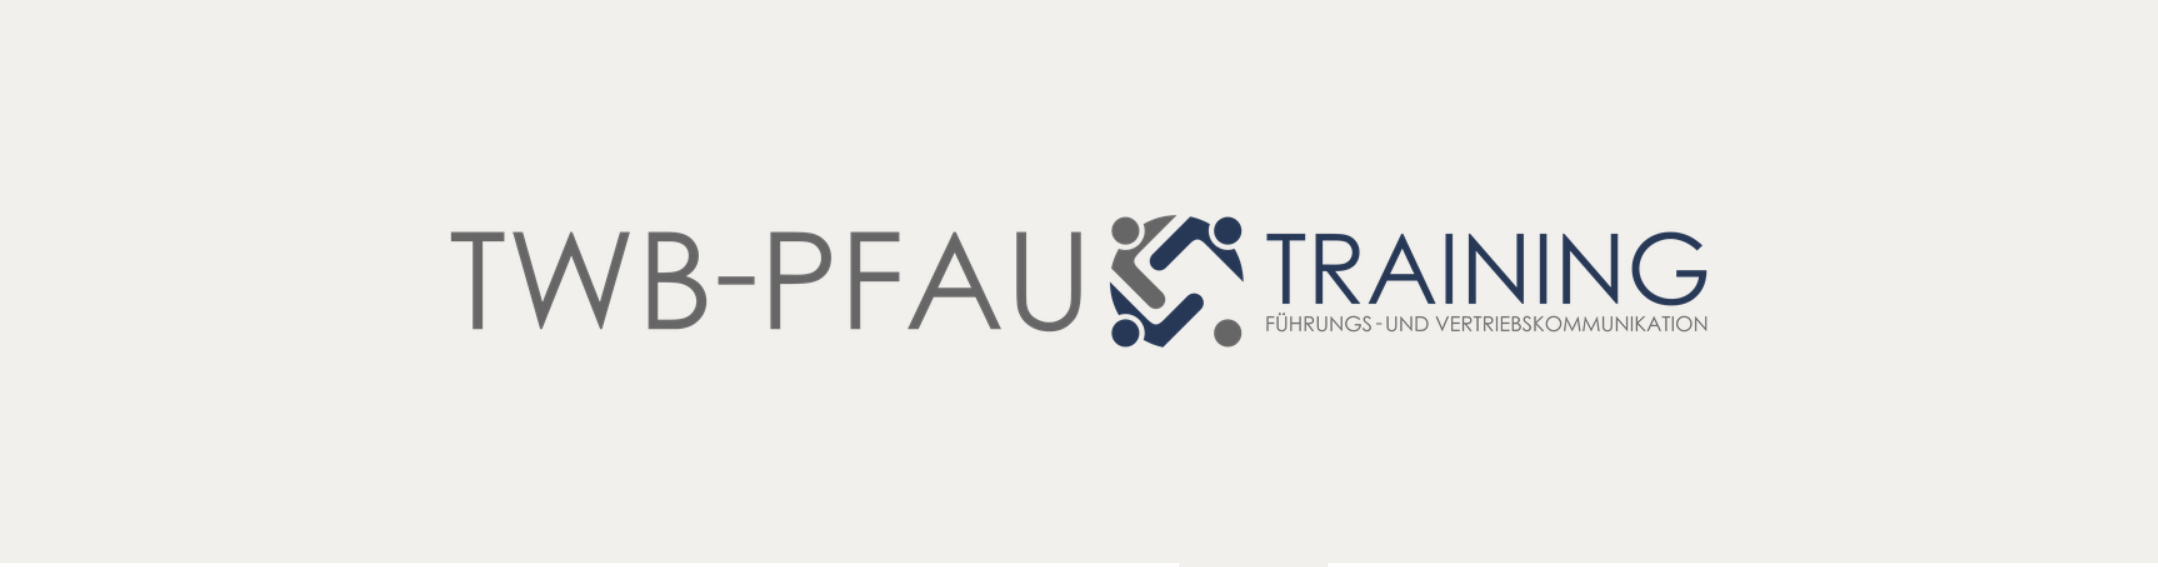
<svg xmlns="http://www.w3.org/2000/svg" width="2158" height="567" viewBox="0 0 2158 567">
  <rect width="100%" height="100%" fill="#ffffff"/>
  <rect x="0" y="0" width="2158" height="563" fill="#f2f0ed"/>
  <image x="450" y="214" width="1258" height="134" href="img1.png"/>
  <rect x="1179" y="563" width="149" height="4" fill="#f2f0ed"/>
</svg>
